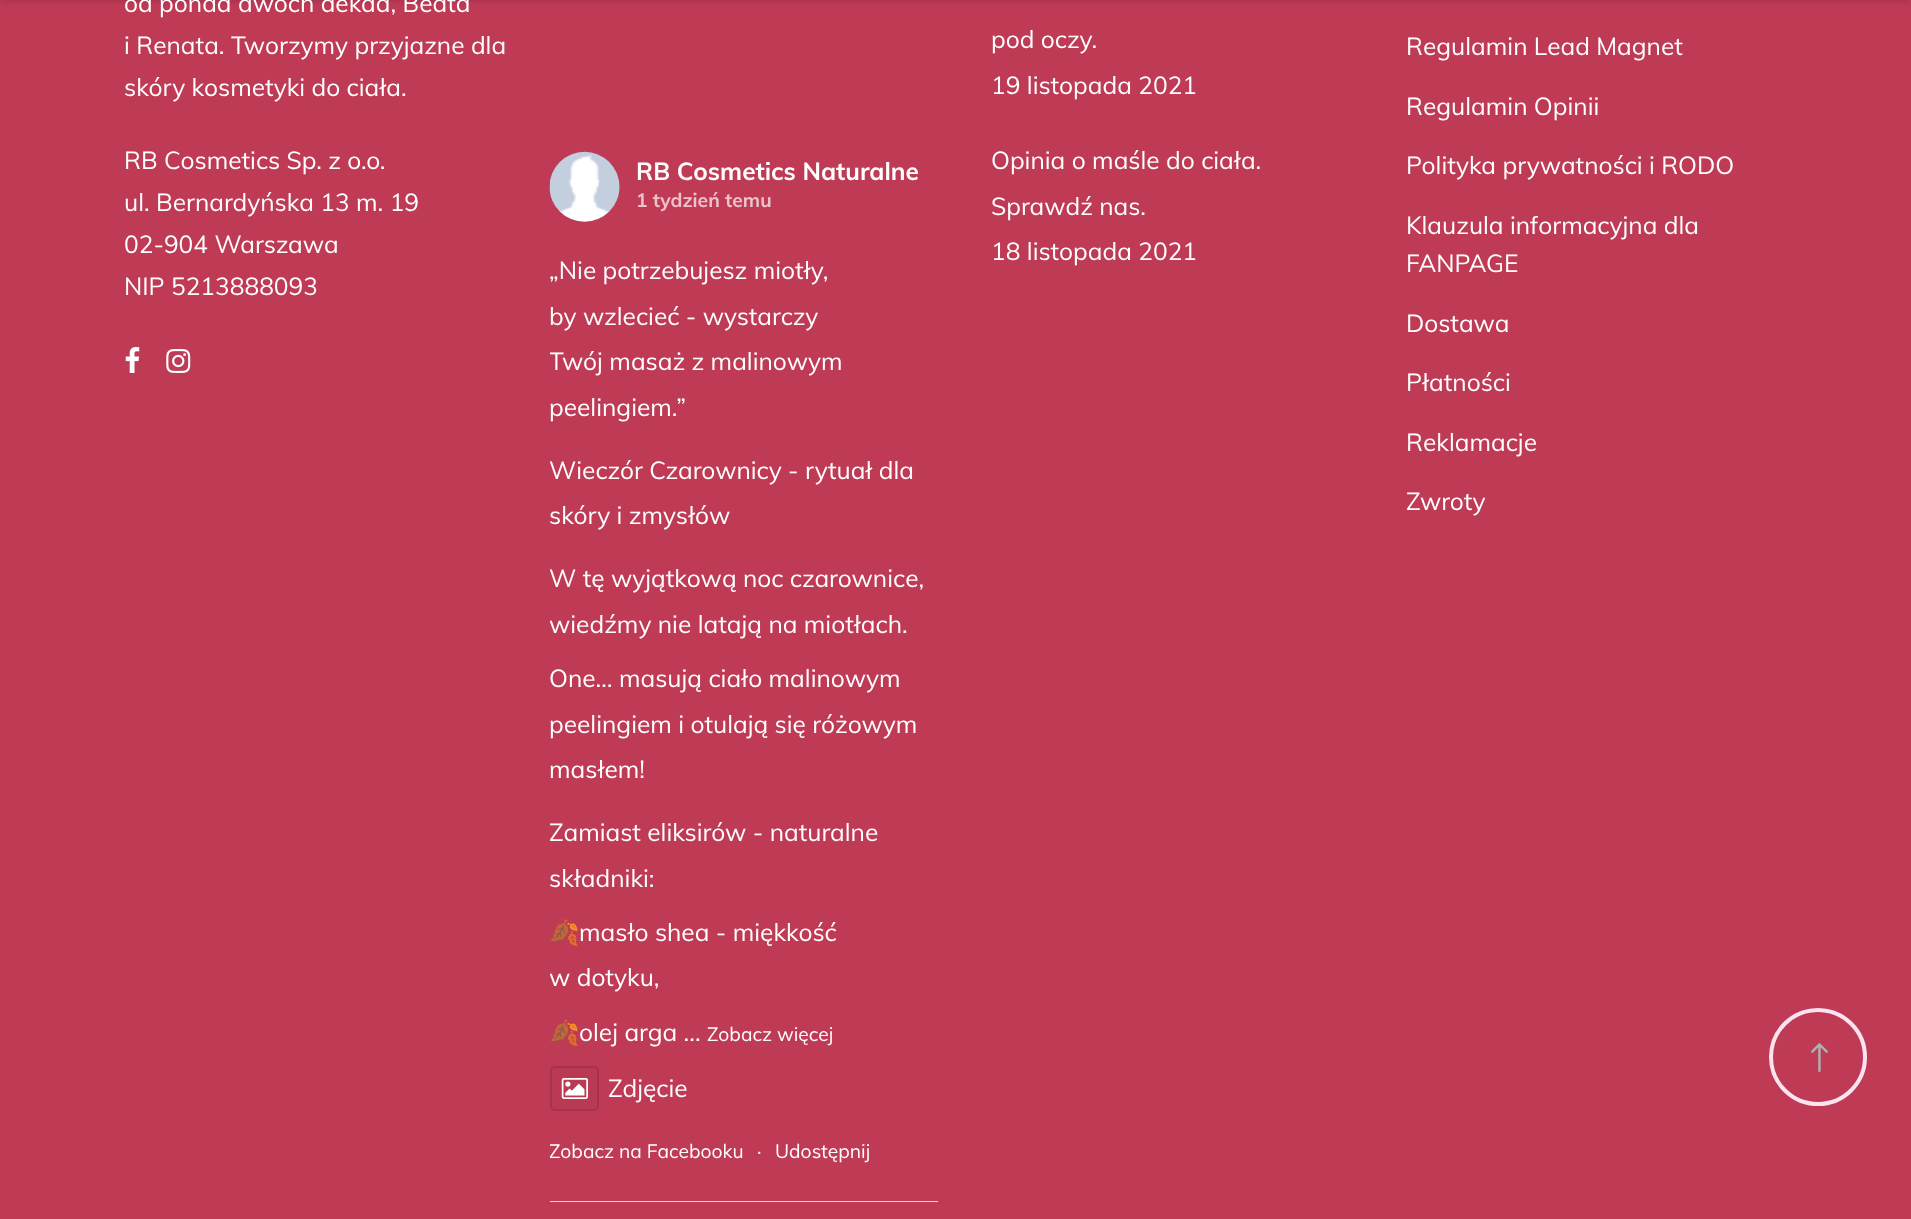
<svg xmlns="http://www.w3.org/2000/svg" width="1911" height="1219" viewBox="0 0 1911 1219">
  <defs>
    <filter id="blur1" x="-50%" y="-200%" width="200%" height="500%"><feGaussianBlur stdDeviation="2.5"/></filter>
    <clipPath id="clip1"><rect x="550" y="0" width="388" height="1202"/></clipPath>
  </defs>
  <rect width="100%" height="100%" fill="#be3a55"/>
  <rect x="0" y="-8" width="1911" height="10" fill="#000000" fill-opacity="0.11" filter="url(#blur1)"/>
  <text x="124" y="12" font-family="Muli" font-size="24.5" fill="#ffffff">od ponad dwóch dekad, Beata</text>
  <text x="124" y="54" font-family="Muli" font-size="24.5" fill="#ffffff">i Renata. Tworzymy przyjazne dla</text>
  <text x="124" y="96" font-family="Muli" font-size="24.5" fill="#ffffff">skóry kosmetyki do ciała.</text>
  <text x="124" y="169" font-family="Muli" font-size="24.5" fill="#ffffff">RB Cosmetics Sp. z o.o.</text>
  <text x="124" y="211" font-family="Muli" font-size="24.5" fill="#ffffff">ul. Bernardyńska 13 m. 19</text>
  <text x="124" y="253" font-family="Muli" font-size="24.5" fill="#ffffff">02-904 Warszawa</text>
  <text x="124" y="295" font-family="Muli" font-size="24.5" fill="#ffffff">NIP 5213888093</text>
  <image x="125" y="347" width="15" height="26" href="img1.png"/>
  <image x="166" y="349" width="25" height="24" href="img2.png"/>
  <rect x="550" y="1201" width="388" height="1" fill="#dddddd"/>
  <image x="549" y="151" width="71" height="71" href="img3.png"/>
  <text x="636" y="180" font-family="Muli" font-size="24.5" font-weight="bold" fill="#ffffff">RB Cosmetics Naturalne</text>
  <text x="636" y="207" font-family="Muli" font-size="19.25" font-weight="bold" fill="#ecc3c9">1 tydzień temu</text>
  <text x="549" y="279" font-family="Muli" font-size="24.5" fill="#ffffff">„Nie potrzebujesz miotły,</text>
  <text x="549" y="325" font-family="Muli" font-size="24.5" fill="#ffffff">by wzlecieć - wystarczy</text>
  <g clip-path="url(#clip1)">
    <text x="549" y="370" font-family="Muli" font-size="24.5" fill="#ffffff">Twój masaż z malinowym</text>
  </g>
  <text x="549" y="416" font-family="Muli" font-size="24.5" fill="#ffffff">peelingiem.”</text>
  <text x="549" y="479" font-family="Muli" font-size="24.5" fill="#ffffff">Wieczór Czarownicy - rytuał dla</text>
  <text x="549" y="524" font-family="Muli" font-size="24.5" fill="#ffffff">skóry i zmysłów</text>
  <text x="549" y="587" font-family="Muli" font-size="24.5" fill="#ffffff">W tę wyjątkową noc czarownice,</text>
  <g clip-path="url(#clip1)">
    <text x="549" y="633" font-family="Muli" font-size="24.5" fill="#ffffff">wiedźmy nie latają na miotłach.</text>
  </g>
  <text x="549" y="687" font-family="Muli" font-size="24.5" fill="#ffffff">One… masują ciało malinowym</text>
  <text x="549" y="733" font-family="Muli" font-size="24.5" fill="#ffffff">peelingiem i otulają się różowym</text>
  <text x="549" y="778" font-family="Muli" font-size="24.5" fill="#ffffff">masłem!</text>
  <g clip-path="url(#clip1)">
    <text x="549" y="841" font-family="Muli" font-size="24.5" fill="#ffffff">Zamiast eliksirów - naturalne</text>
  </g>
  <text x="549" y="887" font-family="Muli" font-size="24.5" fill="#ffffff">składniki:</text>
  <g clip-path="url(#clip1)">
    <text x="549" y="941" font-family="Noto Color Emoji" font-size="24.5" fill="#ffffff">🍂</text>
  </g>
  <text x="579" y="941" font-family="Muli" font-size="24.5" fill="#ffffff">masło shea - miękkość</text>
  <g clip-path="url(#clip1)">
    <text x="549" y="986" font-family="Muli" font-size="24.5" fill="#ffffff">w dotyku,</text>
    <text x="549" y="1041" font-family="Noto Color Emoji" font-size="24.5" fill="#ffffff">🍂</text>
  </g>
  <text x="579" y="1041" font-family="Muli" font-size="24.5" fill="#ffffff">olej arga ...</text>
  <text x="707" y="1041" font-family="Muli" font-size="19.25" fill="#ffffff">Zobacz więcej</text>
  <rect x="551" y="1067" width="47" height="43" rx="4" fill="#ba3953" stroke="#a7334b" stroke-width="2"/>
  <image x="561" y="1078" width="27" height="21" href="img4.png"/>
  <text x="608" y="1097" font-family="Muli" font-size="24.5" fill="#ffffff">Zdjęcie</text>
  <g clip-path="url(#clip1)">
    <text x="549" y="1158" font-family="Muli" font-size="19.25" fill="#ffffff">Zobacz na Facebooku</text>
  </g>
  <text x="757" y="1158" font-family="Muli" font-size="19.25" fill="#ffffff">·</text>
  <text x="775" y="1158" font-family="Muli" font-size="19.25" fill="#ffffff">Udostępnij</text>
  <text x="991" y="48" font-family="Muli" font-size="24.5" fill="#ffffff">pod oczy.</text>
  <text x="991" y="94" font-family="Muli" font-size="24.5" fill="#ffffff">19 listopada 2021</text>
  <text x="991" y="169" font-family="Muli" font-size="24.5" fill="#ffffff">Opinia o maśle do ciała.</text>
  <text x="991" y="215" font-family="Muli" font-size="24.5" fill="#ffffff">Sprawdź nas.</text>
  <text x="991" y="260" font-family="Muli" font-size="24.5" fill="#ffffff">18 listopada 2021</text>
  <text x="1406" y="55" font-family="Muli" font-size="24.5" fill="#ffffff">Regulamin Lead Magnet</text>
  <text x="1406" y="115" font-family="Muli" font-size="24.5" fill="#ffffff">Regulamin Opinii</text>
  <text x="1406" y="174" font-family="Muli" font-size="24.5" fill="#ffffff">Polityka prywatności i RODO</text>
  <text x="1406" y="234" font-family="Muli" font-size="24.5" fill="#ffffff">Klauzula informacyjna dla</text>
  <text x="1406" y="272" font-family="Muli" font-size="24.5" fill="#ffffff">FANPAGE</text>
  <text x="1406" y="332" font-family="Muli" font-size="24.5" fill="#ffffff">Dostawa</text>
  <text x="1406" y="391" font-family="Muli" font-size="24.5" fill="#ffffff">Płatności</text>
  <text x="1406" y="451" font-family="Muli" font-size="24.5" fill="#ffffff">Reklamacje</text>
  <text x="1406" y="510" font-family="Muli" font-size="24.5" fill="#ffffff">Zwroty</text>
  <circle cx="1818" cy="1057" r="47" fill="none" stroke="#fbe3f0" stroke-width="4"/>
  <image x="1811" y="1043" width="17" height="30" href="img5.png"/>
</svg>
